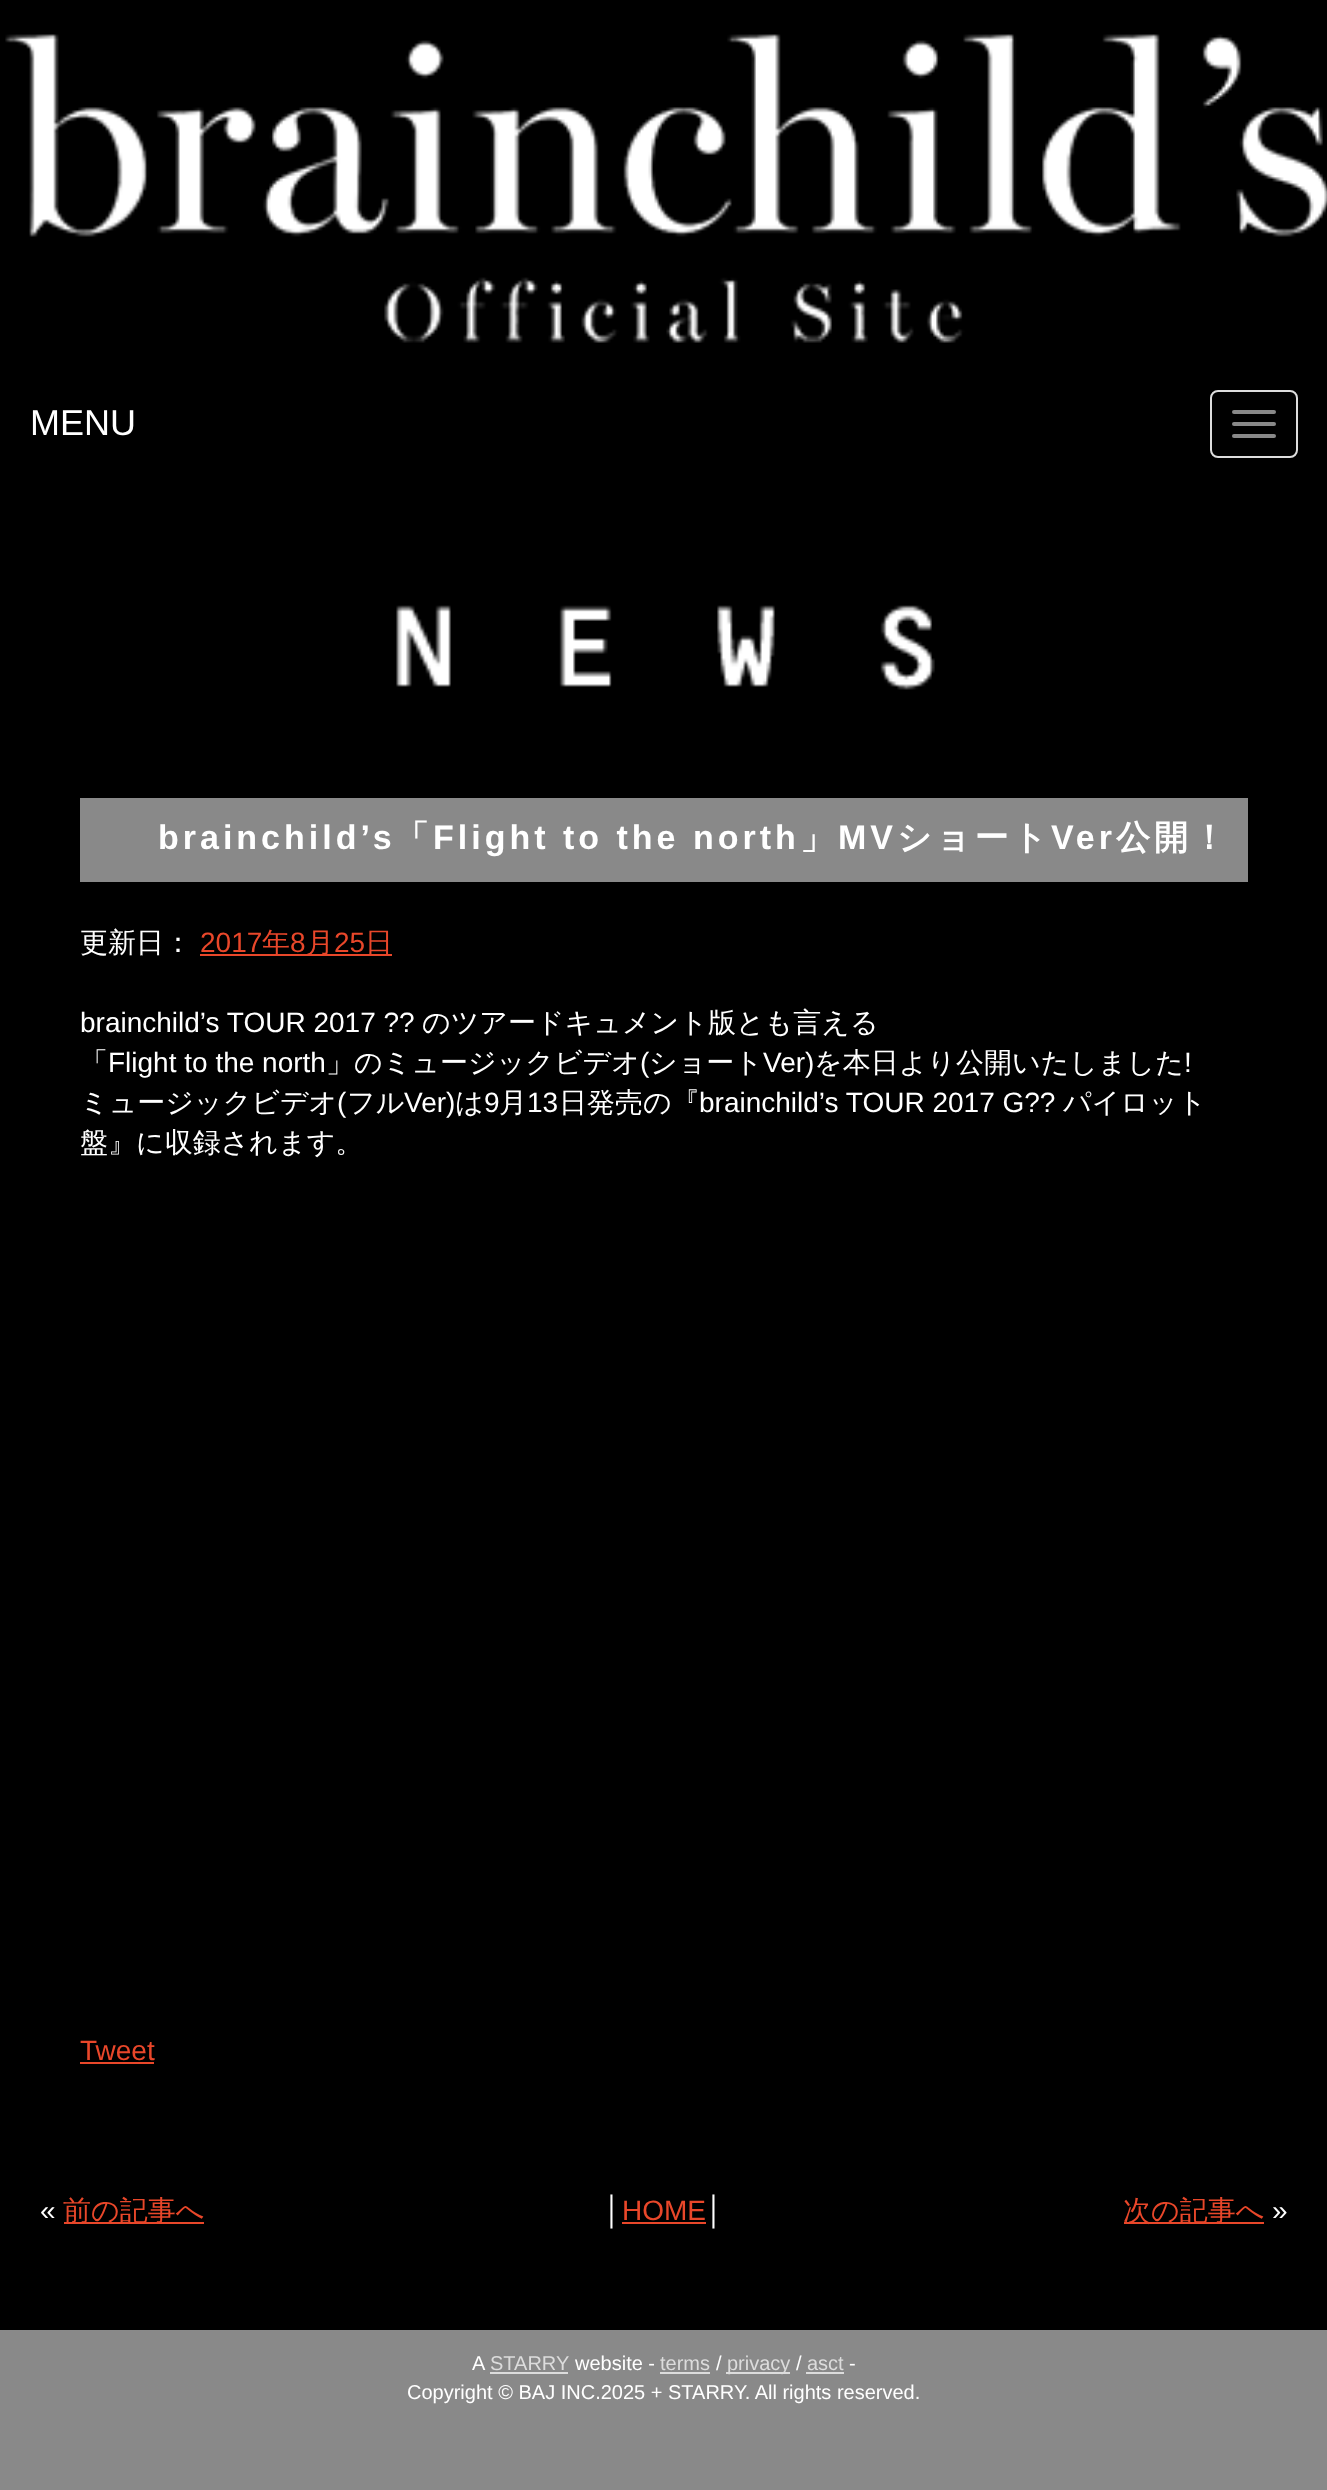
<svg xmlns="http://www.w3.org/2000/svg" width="1327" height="2490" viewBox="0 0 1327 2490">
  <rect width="100%" height="100%" fill="#000000"/>
  <image x="5" y="34" width="1322" height="309" href="img1.png"/>
  <text x="30" y="435" font-family="Liberation Sans" font-size="36" fill="#ffffff">MENU</text>
  <rect x="1211" y="391" width="86" height="66" rx="7" fill="none" stroke="#dddddd" stroke-width="2"/>
  <rect x="1232" y="410" width="44" height="4" rx="2" fill="#888888"/>
  <rect x="1232" y="422" width="44" height="4" rx="2" fill="#888888"/>
  <rect x="1232" y="434" width="44" height="4" rx="2" fill="#888888"/>
  <image x="396" y="605" width="539" height="85" href="img2.png"/>
  <rect x="80" y="798" width="1168" height="84" fill="#898989"/>
  <text x="158" y="849" font-family="Liberation Sans" font-size="34" font-weight="bold" letter-spacing="4" fill="#ffffff">brainchild’s</text>
  <text x="395" y="849" font-family="WenQuanYi Zen Hei" font-size="34" font-weight="bold" letter-spacing="4" fill="#ffffff">「</text>
  <text x="433" y="849" font-family="Liberation Sans" font-size="34" font-weight="bold" letter-spacing="4" fill="#ffffff">Flight to the north</text>
  <text x="800" y="849" font-family="WenQuanYi Zen Hei" font-size="34" font-weight="bold" letter-spacing="4" fill="#ffffff">」</text>
  <text x="838" y="849" font-family="Liberation Sans" font-size="34" font-weight="bold" letter-spacing="4" fill="#ffffff">MV</text>
  <text x="897" y="849" font-family="WenQuanYi Zen Hei" font-size="34" font-weight="bold" letter-spacing="4" fill="#ffffff">ショート</text>
  <text x="1051" y="849" font-family="Liberation Sans" font-size="34" font-weight="bold" letter-spacing="4" fill="#ffffff">Ver</text>
  <text x="1116" y="849" font-family="WenQuanYi Zen Hei" font-size="34" font-weight="bold" letter-spacing="4" fill="#ffffff">公開！</text>
  <text x="80" y="952" font-family="WenQuanYi Zen Hei" font-size="28" font-weight="500" fill="#ffffff">更新日：</text>
  <text x="200" y="952" font-family="Liberation Sans" font-size="28" fill="#e9472a">2017</text>
  <rect x="200" y="954" width="192" height="2" fill="#e9472a"/>
  <text x="262" y="952" font-family="WenQuanYi Zen Hei" font-size="28" font-weight="500" fill="#e9472a">年</text>
  <text x="290" y="952" font-family="Liberation Sans" font-size="28" fill="#e9472a">8</text>
  <text x="306" y="952" font-family="WenQuanYi Zen Hei" font-size="28" font-weight="500" fill="#e9472a">月</text>
  <text x="334" y="952" font-family="Liberation Sans" font-size="28" fill="#e9472a">25</text>
  <text x="365" y="952" font-family="WenQuanYi Zen Hei" font-size="28" font-weight="500" fill="#e9472a">日</text>
  <text x="80" y="1032" font-family="Liberation Sans" font-size="28" fill="#ffffff">brainchild’s TOUR 2017 ??</text>
  <text x="422" y="1032" font-family="WenQuanYi Zen Hei" font-size="28" font-weight="500" fill="#ffffff">のツアードキュメント版とも言える</text>
  <text x="80" y="1072" font-family="WenQuanYi Zen Hei" font-size="28" font-weight="500" fill="#ffffff">「</text>
  <text x="108" y="1072" font-family="Liberation Sans" font-size="28" fill="#ffffff">Flight to the north</text>
  <text x="326" y="1072" font-family="WenQuanYi Zen Hei" font-size="28" font-weight="500" fill="#ffffff">」のミュージックビデオ</text>
  <text x="640" y="1072" font-family="Liberation Sans" font-size="28" fill="#ffffff">(</text>
  <text x="649" y="1072" font-family="WenQuanYi Zen Hei" font-size="28" font-weight="500" fill="#ffffff">ショート</text>
  <text x="763" y="1072" font-family="Liberation Sans" font-size="28" fill="#ffffff">Ver)</text>
  <text x="814" y="1072" font-family="WenQuanYi Zen Hei" font-size="28" font-weight="500" fill="#ffffff">を本日より公開いたしました</text>
  <text x="1184" y="1072" font-family="Liberation Sans" font-size="28" fill="#ffffff">!</text>
  <text x="80" y="1112" font-family="WenQuanYi Zen Hei" font-size="28" font-weight="500" fill="#ffffff">ミュージックビデオ</text>
  <text x="337" y="1112" font-family="Liberation Sans" font-size="28" fill="#ffffff">(</text>
  <text x="347" y="1112" font-family="WenQuanYi Zen Hei" font-size="28" font-weight="500" fill="#ffffff">フル</text>
  <text x="404" y="1112" font-family="Liberation Sans" font-size="28" fill="#ffffff">Ver)</text>
  <text x="455" y="1112" font-family="WenQuanYi Zen Hei" font-size="28" font-weight="500" fill="#ffffff">は</text>
  <text x="484" y="1112" font-family="Liberation Sans" font-size="28" fill="#ffffff">9</text>
  <text x="499" y="1112" font-family="WenQuanYi Zen Hei" font-size="28" font-weight="500" fill="#ffffff">月</text>
  <text x="527" y="1112" font-family="Liberation Sans" font-size="28" fill="#ffffff">13</text>
  <text x="559" y="1112" font-family="WenQuanYi Zen Hei" font-size="28" font-weight="500" fill="#ffffff">日発売の『</text>
  <text x="699" y="1112" font-family="Liberation Sans" font-size="28" fill="#ffffff">brainchild’s TOUR 2017 G??</text>
  <text x="1063" y="1112" font-family="WenQuanYi Zen Hei" font-size="28" font-weight="500" fill="#ffffff">パイロット</text>
  <text x="80" y="1152" font-family="WenQuanYi Zen Hei" font-size="28" font-weight="500" fill="#ffffff">盤』に収録されます。</text>
  <text x="80" y="2060" font-family="Liberation Sans" font-size="28" fill="#e9472a">Tweet</text>
  <rect x="80" y="2062" width="74" height="2" fill="#e9472a"/>
  <text x="40" y="2220" font-family="Liberation Sans" font-size="28" fill="#ffffff">«</text>
  <rect x="64" y="2222" width="140" height="2" fill="#e9472a"/>
  <text x="63" y="2220" font-family="WenQuanYi Zen Hei" font-size="28" font-weight="500" fill="#e9472a">前の記事へ</text>
  <text x="604" y="2220" font-family="Liberation Sans" font-size="28" fill="#ffffff">│</text>
  <text x="622" y="2220" font-family="Liberation Sans" font-size="28" fill="#e9472a">HOME</text>
  <rect x="622" y="2222" width="84" height="2" fill="#e9472a"/>
  <text x="706" y="2220" font-family="Liberation Sans" font-size="28" fill="#ffffff">│</text>
  <rect x="1124" y="2222" width="140" height="2" fill="#e9472a"/>
  <text x="1123" y="2220" font-family="WenQuanYi Zen Hei" font-size="28" font-weight="500" fill="#e9472a">次の記事へ</text>
  <text x="1272" y="2220" font-family="Liberation Sans" font-size="28" fill="#ffffff">»</text>
  <rect x="0" y="2330" width="1327" height="160" fill="#898989"/>
  <text x="472" y="2370" font-family="Liberation Sans" font-size="20" fill="#ffffff">A</text>
  <text x="490" y="2370" font-family="Liberation Sans" font-size="20" fill="#dcdcdc">STARRY</text>
  <rect x="490" y="2372" width="78" height="2" fill="#dcdcdc"/>
  <text x="575" y="2370" font-family="Liberation Sans" font-size="20" fill="#ffffff">website -</text>
  <text x="660" y="2370" font-family="Liberation Sans" font-size="20" fill="#dcdcdc">terms</text>
  <rect x="660" y="2372" width="50" height="2" fill="#dcdcdc"/>
  <text x="716" y="2370" font-family="Liberation Sans" font-size="20" fill="#ffffff">/</text>
  <rect x="726" y="2372" width="64" height="2" fill="#dcdcdc"/>
  <text x="727" y="2370" font-family="Liberation Sans" font-size="20" fill="#dcdcdc">privacy</text>
  <text x="796" y="2370" font-family="Liberation Sans" font-size="20" fill="#ffffff">/</text>
  <text x="807" y="2370" font-family="Liberation Sans" font-size="20" fill="#dcdcdc">asct</text>
  <rect x="806" y="2372" width="38" height="2" fill="#dcdcdc"/>
  <text x="849" y="2370" font-family="Liberation Sans" font-size="20" fill="#ffffff">-</text>
  <text x="407" y="2399" font-family="Liberation Sans" font-size="20" fill="#ffffff">Copyright © BAJ INC.2025 + STARRY. All rights reserved.</text>
</svg>
